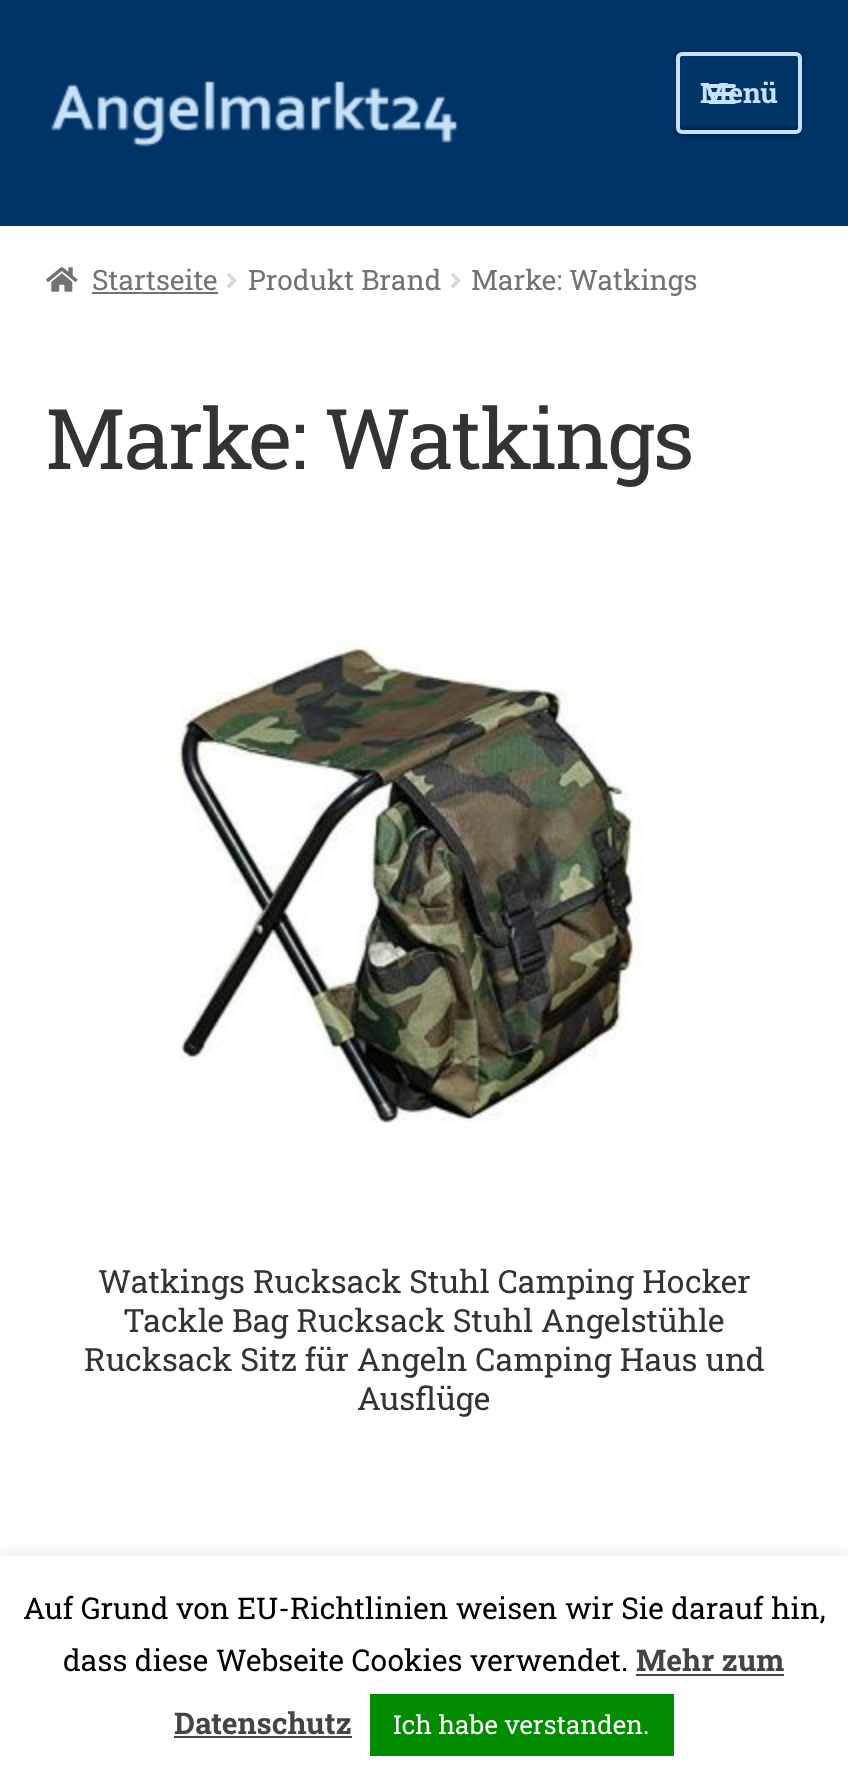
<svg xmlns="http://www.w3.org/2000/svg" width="848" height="1779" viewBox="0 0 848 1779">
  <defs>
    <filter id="blur1" x="-50%" y="-200%" width="200%" height="500%"><feGaussianBlur stdDeviation="2"/></filter>
    <filter id="blur2" x="-50%" y="-200%" width="200%" height="500%"><feGaussianBlur stdDeviation="10"/></filter>
  </defs>
  <rect width="100%" height="100%" fill="#ffffff"/>
  <rect x="0" y="0" width="848" height="226" fill="#003366"/>
  <image x="51" y="81" width="408" height="66" href="img1.png"/>
  <rect x="676" y="54" width="126" height="82" rx="6" fill="#000000" fill-opacity="0.3" filter="url(#blur1)"/>
  <rect x="676" y="52" width="126" height="82" rx="6" fill="#003366"/>
  <path d="M680 123V127C680 129 681 130 683 130H795C797 130 798 129 798 127V123C798 125 797 126 795 126H683C681 126 680 125 680 123Z" fill="#002952"/>
  <rect x="678" y="54" width="122" height="78" rx="4" fill="none" stroke="#c8e1fa" stroke-width="4"/>
  <text x="700" y="103" font-family="Roboto Slab" font-size="28" font-weight="bold" fill="#c8e1fa">Menü</text>
  <rect x="708" y="92" width="28" height="4" rx="2" fill="#c8e1fa"/>
  <rect x="708" y="84" width="28" height="4" rx="2" fill="#c8e1fa"/>
  <rect x="708" y="100" width="28" height="4" rx="2" fill="#c8e1fa"/>
  <image x="46" y="267" width="32" height="25" href="img2.png"/>
  <text x="92" y="290" font-family="Roboto Slab" font-size="28" fill="#727272">Startseite</text>
  <rect x="92" y="292" width="126" height="2" fill="#727272"/>
  <image x="227" y="273" width="10" height="16" href="img3.png"/>
  <text x="248" y="290" font-family="Roboto Slab" font-size="28" fill="#727272">Produkt Brand</text>
  <image x="451" y="273" width="10" height="16" href="img3.png"/>
  <text x="471" y="290" font-family="Roboto Slab" font-size="28" fill="#727272">Marke: Watkings</text>
  <text x="45" y="469" font-family="Roboto Slab" font-size="83.75" letter-spacing="-2" fill="#333333">Marke: Watkings</text>
  <image x="165" y="642" width="479" height="488" href="img4.png"/>
  <text x="98" y="1293" font-family="Roboto Slab" font-size="32" fill="#333333">Watkings Rucksack Stuhl Camping Hocker</text>
  <text x="123" y="1332" font-family="Roboto Slab" font-size="32" fill="#333333">Tackle Bag Rucksack Stuhl Angelstühle</text>
  <text x="84" y="1371" font-family="Roboto Slab" font-size="32" fill="#333333">Rucksack Sitz für Angeln Camping Haus und</text>
  <text x="357" y="1410" font-family="Roboto Slab" font-size="32" fill="#333333">Ausflüge</text>
  <rect x="0" y="1554" width="848" height="224" fill="#acabab" fill-opacity="0.3" filter="url(#blur2)"/>
  <rect x="0" y="1556" width="848" height="223" fill="#ffffff"/>
  <text x="23" y="1619" font-family="Roboto Slab" font-size="30" fill="#000000">Auf Grund von EU-Richtlinien weisen wir Sie darauf hin,</text>
  <text x="63" y="1671" font-family="Roboto Slab" font-size="30" fill="#000000">dass diese Webseite Cookies verwendet.</text>
  <text x="636" y="1671" font-family="Roboto Slab" font-size="30" font-weight="bold" fill="#444444">Mehr zum</text>
  <rect x="636" y="1674" width="148" height="2" fill="#444444"/>
  <text x="174" y="1734" font-family="Roboto Slab" font-size="30" font-weight="bold" fill="#444444">Datenschutz</text>
  <rect x="174" y="1736" width="178" height="2" fill="#444444"/>
  <rect x="370" y="1694" width="304" height="62" fill="#038c01"/>
  <text x="393" y="1734" font-family="Roboto Slab" font-size="26" fill="#ffffff">Ich habe verstanden.</text>
</svg>
